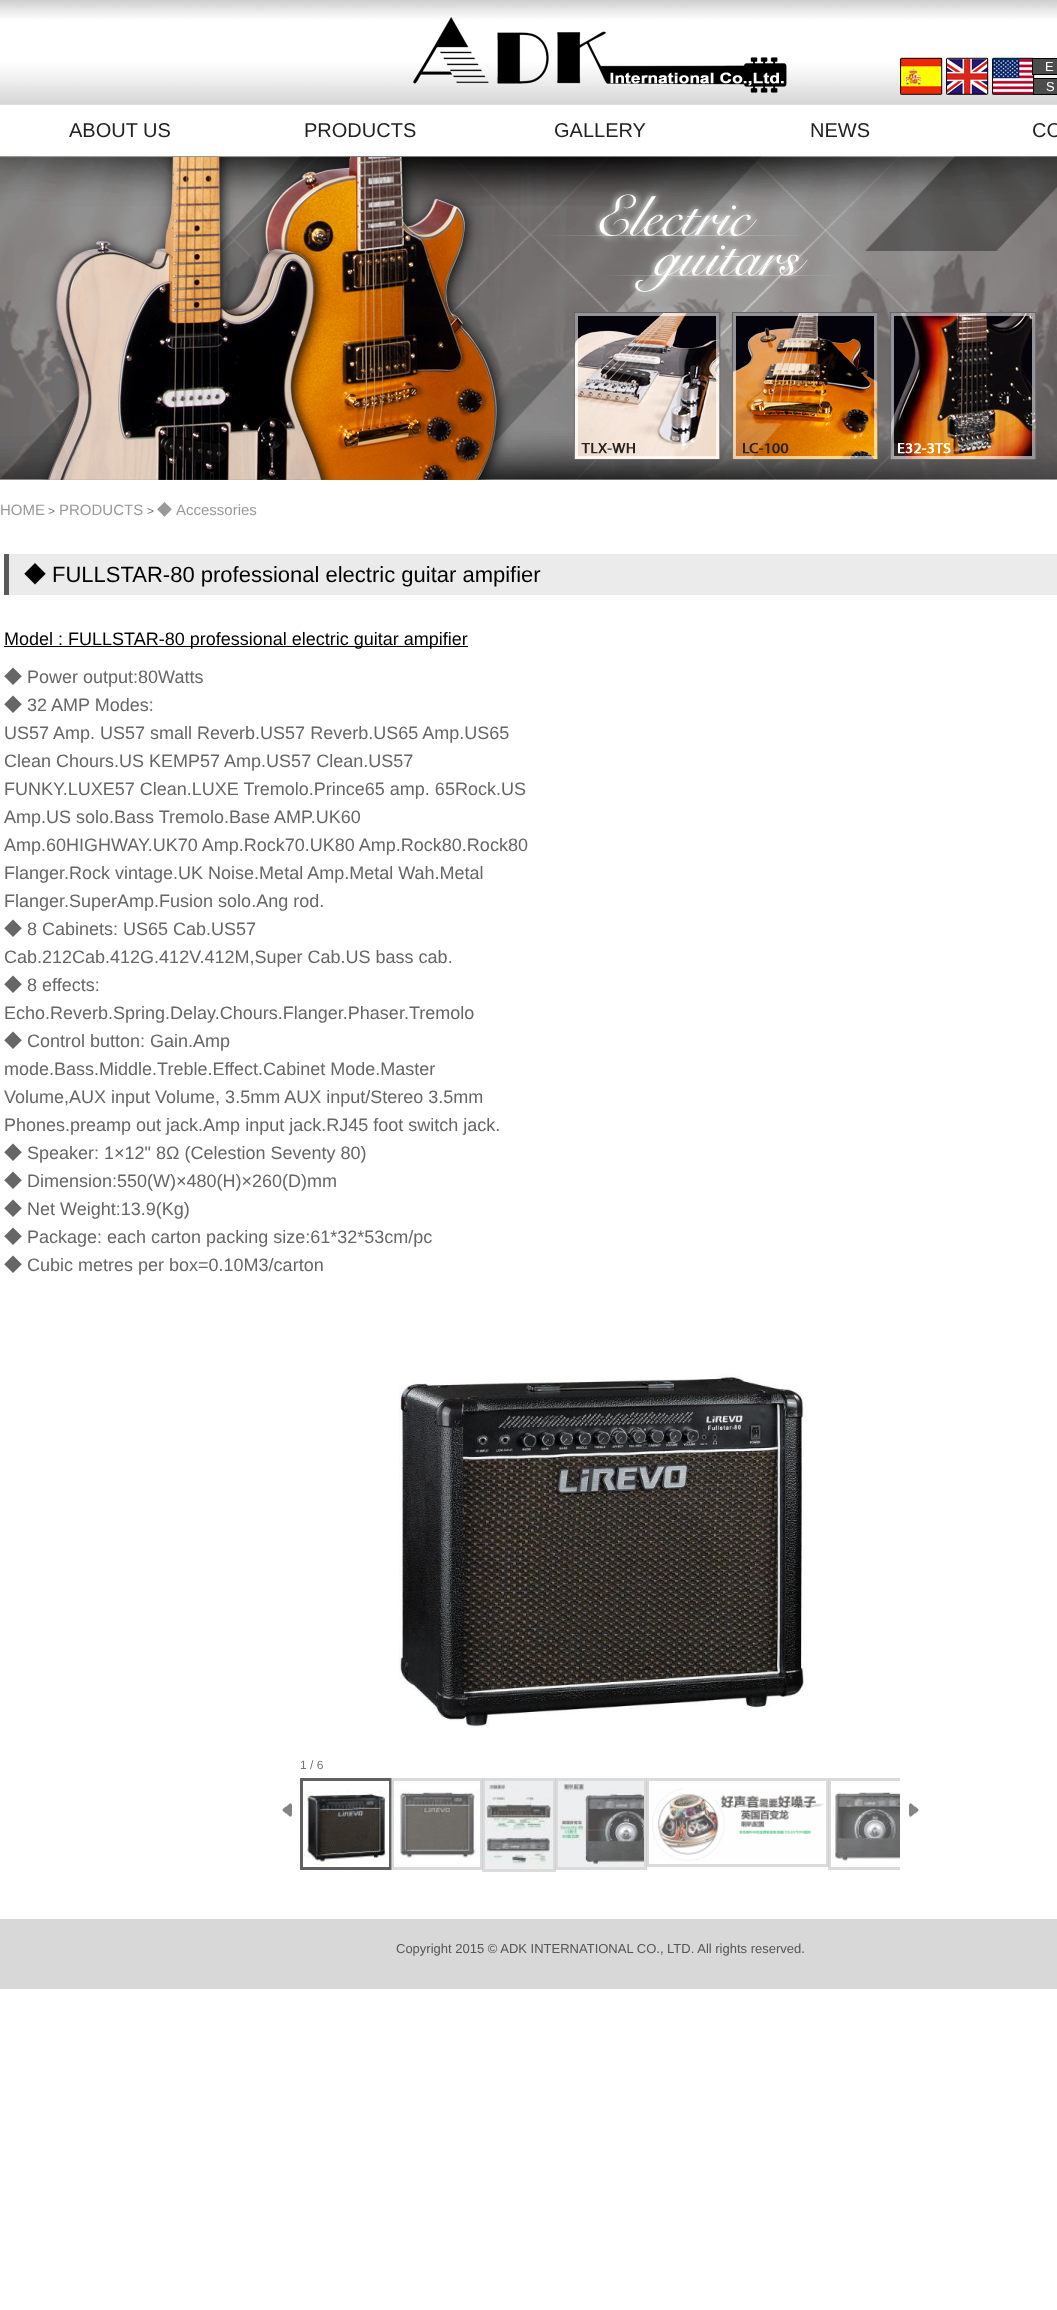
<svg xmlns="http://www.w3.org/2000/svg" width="1057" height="2310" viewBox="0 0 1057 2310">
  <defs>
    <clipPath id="clip1"><rect x="300" y="1778" width="600" height="104"/></clipPath>
  </defs>
  <rect width="100%" height="100%" fill="#ffffff"/>
  <image x="0" y="0" width="1057" height="480" href="img1.png"/>
  <rect x="0" y="1919" width="1057" height="70" fill="#d8d8d8"/>
  <image x="413" y="17" width="374" height="76" href="img2.png"/>
  <image x="900" y="57" width="135" height="38" href="img3.png"/>
  <rect x="1032.5" y="58.5" width="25" height="16" fill="#4c4c4c" stroke="#000000"/>
  <text x="1045" y="71" font-family="Liberation Sans" font-size="13" fill="#ffffff">E</text>
  <rect x="1033.5" y="78.5" width="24" height="16" fill="#4c4c4c" stroke="#000000"/>
  <text x="1046" y="91" font-family="Liberation Sans" font-size="13" fill="#ffffff">S</text>
  <text x="69" y="137" font-family="Liberation Sans" font-size="20" fill="#222222">ABOUT US</text>
  <text x="304" y="137" font-family="Liberation Sans" font-size="20" fill="#222222">PRODUCTS</text>
  <text x="554" y="137" font-family="Liberation Sans" font-size="20" fill="#222222">GALLERY</text>
  <text x="810" y="137" font-family="Liberation Sans" font-size="20" fill="#222222">NEWS</text>
  <text x="1032" y="137" font-family="Liberation Sans" font-size="20" fill="#222222">CO</text>
  <image x="39" y="157" width="998" height="323" href="img4.png"/>
  <text x="0" y="515" font-family="Liberation Sans" font-size="15" fill="#999999">HOME</text>
  <text x="48" y="515" font-family="Liberation Sans" font-size="12" fill="#747474">&gt;</text>
  <text x="59" y="515" font-family="Liberation Sans" font-size="15" fill="#999999">PRODUCTS</text>
  <text x="147" y="515" font-family="Liberation Sans" font-size="12" fill="#747474">&gt;</text>
  <text x="157" y="515" font-family="Noto Sans CJK TC" font-size="15" fill="#999999">◆</text>
  <text x="176" y="515" font-family="Liberation Sans" font-size="15" fill="#999999">Accessories</text>
  <rect x="9" y="554" width="1048" height="41" fill="#ebebeb"/>
  <rect x="4" y="554" width="5" height="41" fill="#5a5a5a"/>
  <text x="24" y="582" font-family="Noto Sans CJK TC" font-size="22" fill="#000000">◆</text>
  <text x="52" y="582" font-family="Liberation Sans" font-size="22" fill="#000000">FULLSTAR-80 professional electric guitar ampifier</text>
  <rect x="4" y="646" width="464" height="1" fill="#000000"/>
  <text x="4" y="645" font-family="Liberation Sans" font-size="18" fill="#000000">Model : FULLSTAR-80 professional electric guitar ampifier</text>
  <text x="4" y="683" font-family="Noto Sans CJK TC" font-size="18" fill="#666666">◆</text>
  <text x="27" y="683" font-family="Liberation Sans" font-size="18" fill="#666666">Power output:80Watts</text>
  <text x="4" y="711" font-family="Noto Sans CJK TC" font-size="18" fill="#666666">◆</text>
  <text x="27" y="711" font-family="Liberation Sans" font-size="18" fill="#666666">32 AMP Modes:</text>
  <text x="4" y="739" font-family="Liberation Sans" font-size="18" fill="#666666">US57 Amp. US57 small Reverb.US57 Reverb.US65 Amp.US65</text>
  <text x="4" y="767" font-family="Liberation Sans" font-size="18" fill="#666666">Clean Chours.US KEMP57 Amp.US57 Clean.US57</text>
  <text x="4" y="795" font-family="Liberation Sans" font-size="18" fill="#666666">FUNKY.LUXE57 Clean.LUXE Tremolo.Prince65 amp. 65Rock.US</text>
  <text x="4" y="823" font-family="Liberation Sans" font-size="18" fill="#666666">Amp.US solo.Bass Tremolo.Base AMP.UK60</text>
  <text x="4" y="851" font-family="Liberation Sans" font-size="18" fill="#666666">Amp.60HIGHWAY.UK70 Amp.Rock70.UK80 Amp.Rock80.Rock80</text>
  <text x="4" y="879" font-family="Liberation Sans" font-size="18" fill="#666666">Flanger.Rock vintage.UK Noise.Metal Amp.Metal Wah.Metal</text>
  <text x="4" y="907" font-family="Liberation Sans" font-size="18" fill="#666666">Flanger.SuperAmp.Fusion solo.Ang rod.</text>
  <text x="4" y="935" font-family="Noto Sans CJK TC" font-size="18" fill="#666666">◆</text>
  <text x="27" y="935" font-family="Liberation Sans" font-size="18" fill="#666666">8 Cabinets: US65 Cab.US57</text>
  <text x="4" y="963" font-family="Liberation Sans" font-size="18" fill="#666666">Cab.212Cab.412G.412V.412M,Super Cab.US bass cab.</text>
  <text x="4" y="991" font-family="Noto Sans CJK TC" font-size="18" fill="#666666">◆</text>
  <text x="27" y="991" font-family="Liberation Sans" font-size="18" fill="#666666">8 effects:</text>
  <text x="4" y="1019" font-family="Liberation Sans" font-size="18" fill="#666666">Echo.Reverb.Spring.Delay.Chours.Flanger.Phaser.Tremolo</text>
  <text x="4" y="1047" font-family="Noto Sans CJK TC" font-size="18" fill="#666666">◆</text>
  <text x="27" y="1047" font-family="Liberation Sans" font-size="18" fill="#666666">Control button: Gain.Amp</text>
  <text x="4" y="1075" font-family="Liberation Sans" font-size="18" fill="#666666">mode.Bass.Middle.Treble.Effect.Cabinet Mode.Master</text>
  <text x="4" y="1103" font-family="Liberation Sans" font-size="18" fill="#666666">Volume,AUX input Volume, 3.5mm AUX input/Stereo 3.5mm</text>
  <text x="4" y="1131" font-family="Liberation Sans" font-size="18" fill="#666666">Phones.preamp out jack.Amp input jack.RJ45 foot switch jack.</text>
  <text x="4" y="1159" font-family="Noto Sans CJK TC" font-size="18" fill="#666666">◆</text>
  <text x="27" y="1159" font-family="Liberation Sans" font-size="18" fill="#666666">Speaker: 1×12" 8Ω (Celestion Seventy 80)</text>
  <text x="4" y="1187" font-family="Noto Sans CJK TC" font-size="18" fill="#666666">◆</text>
  <text x="27" y="1187" font-family="Liberation Sans" font-size="18" fill="#666666">Dimension:550(W)×480(H)×260(D)mm</text>
  <text x="4" y="1215" font-family="Noto Sans CJK TC" font-size="18" fill="#666666">◆</text>
  <text x="27" y="1215" font-family="Liberation Sans" font-size="18" fill="#666666">Net Weight:13.9(Kg)</text>
  <text x="4" y="1243" font-family="Noto Sans CJK TC" font-size="18" fill="#666666">◆</text>
  <text x="27" y="1243" font-family="Liberation Sans" font-size="18" fill="#666666">Package: each carton packing size:61*32*53cm/pc</text>
  <text x="4" y="1271" font-family="Noto Sans CJK TC" font-size="18" fill="#666666">◆</text>
  <text x="27" y="1271" font-family="Liberation Sans" font-size="18" fill="#666666">Cubic metres per box=0.10M3/carton</text>
  <image x="399" y="1373" width="408" height="354" href="img5.png"/>
  <text x="300" y="1769" font-family="Liberation Sans" font-size="12" fill="#747474">1 / 6</text>
  <image x="282" y="1803" width="10" height="14" href="img6.png"/>
  <rect x="301.5" y="1779.5" width="89" height="89" fill="none" stroke="#616161" stroke-width="3"/>
  <image x="303" y="1790" width="86" height="77" href="img7.png"/>
  <rect x="392.5" y="1779.5" width="89" height="89" fill="none" stroke="#cccccc" stroke-opacity="0.7" stroke-width="3"/>
  <image x="394" y="1789" width="86" height="70" href="img8.png"/>
  <rect x="483.5" y="1779.5" width="71" height="91" fill="none" stroke="#cccccc" stroke-opacity="0.7" stroke-width="3"/>
  <image x="485" y="1781" width="68" height="88" href="img9.png"/>
  <rect x="556.5" y="1779.5" width="89" height="89" fill="none" stroke="#cccccc" stroke-opacity="0.7" stroke-width="3"/>
  <image x="558" y="1781" width="86" height="86" href="img10.png"/>
  <rect x="647.5" y="1779.5" width="180" height="86" fill="none" stroke="#cccccc" stroke-opacity="0.7" stroke-width="3"/>
  <image x="652" y="1788" width="172" height="73" href="img11.png"/>
  <g clip-path="url(#clip1)">
    <rect x="829.5" y="1779.5" width="89" height="89" fill="none" stroke="#cccccc" stroke-opacity="0.7" stroke-width="3"/>
  </g>
  <image x="831" y="1791" width="69" height="75" href="img12.png"/>
  <image x="909" y="1803" width="10" height="14" href="img13.png"/>
  <text x="396" y="1953" font-family="Liberation Sans" font-size="13" fill="#555555">Copyright 2015 © ADK INTERNATIONAL CO., LTD. All rights reserved.</text>
</svg>
